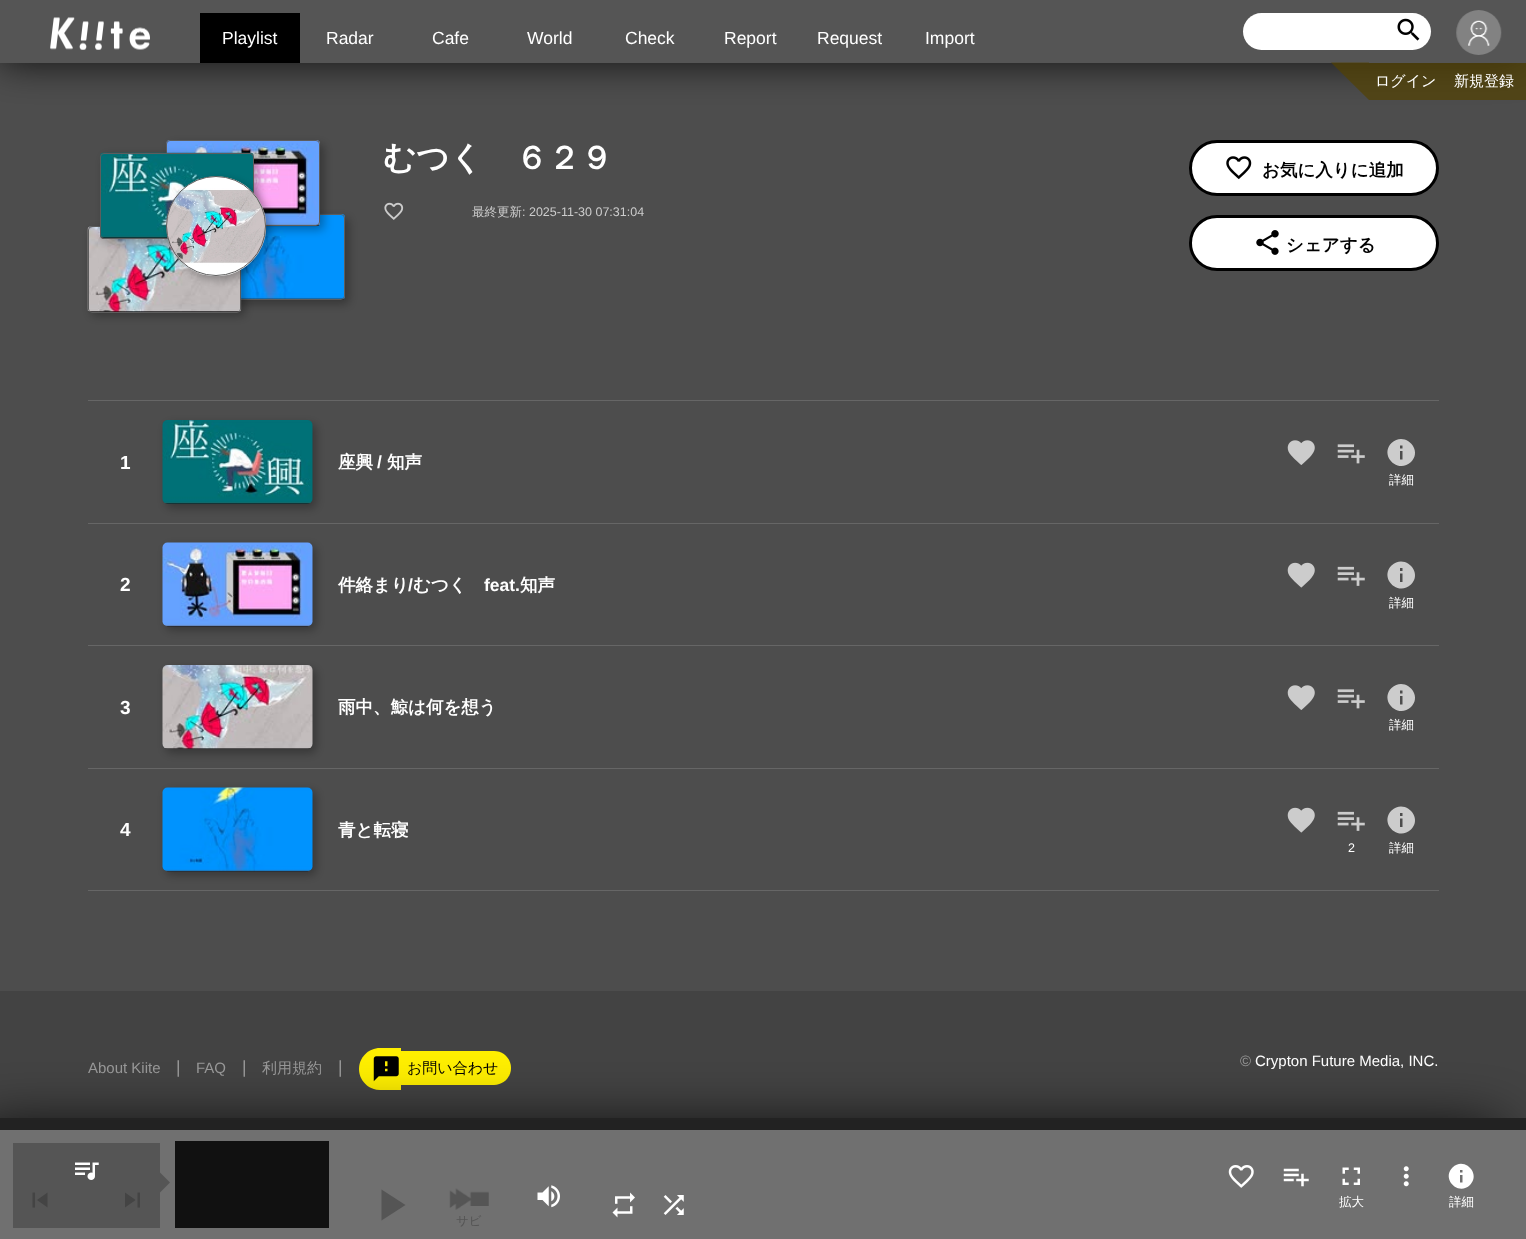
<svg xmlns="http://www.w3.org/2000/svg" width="1526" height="1239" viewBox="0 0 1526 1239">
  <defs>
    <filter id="blur1" x="-50%" y="-200%" width="200%" height="500%"><feGaussianBlur stdDeviation="19"/></filter>
    <filter id="blur2" x="-50%" y="-200%" width="200%" height="500%"><feGaussianBlur stdDeviation="5"/></filter>
    <filter id="blur3" x="-50%" y="-200%" width="200%" height="500%"><feGaussianBlur stdDeviation="31"/></filter>
  </defs>
  <rect width="100%" height="100%" fill="#4d4d4d"/>
  <rect x="0" y="0" width="1526" height="63" fill="#000000" fill-opacity="0.8" filter="url(#blur1)"/>
  <rect x="0" y="0" width="1526" height="63" fill="#555555"/>
  <image x="50" y="17" width="100" height="33" href="img1.png"/>
  <rect x="200" y="13" width="100" height="50" fill="#000000"/>
  <text x="222" y="44" font-family="Liberation Sans" font-size="17.5" fill="#ffffff">Playlist</text>
  <text x="326" y="44" font-family="Liberation Sans" font-size="17.5" fill="#ffffff">Radar</text>
  <text x="432" y="44" font-family="Liberation Sans" font-size="17.5" fill="#ffffff">Cafe</text>
  <text x="527" y="44" font-family="Liberation Sans" font-size="17.5" fill="#ffffff">World</text>
  <text x="625" y="44" font-family="Liberation Sans" font-size="17.5" fill="#ffffff">Check</text>
  <text x="724" y="44" font-family="Liberation Sans" font-size="17.5" fill="#ffffff">Report</text>
  <text x="817" y="44" font-family="Liberation Sans" font-size="17.5" fill="#ffffff">Request</text>
  <text x="925" y="44" font-family="Liberation Sans" font-size="17.5" fill="#ffffff">Import</text>
  <rect x="1243" y="13" width="188" height="37" rx="18.5" fill="#ffffff"/>
  <image x="1397" y="18" width="23" height="23" href="img2.png"/>
  <image x="1456" y="10" width="46" height="45" href="img3.png"/>
  <rect x="1369" y="63" width="157" height="37" fill="#524201" fill-opacity="0.7"/>
  <path d="M1369 62.5V100L1331 62.5Z" fill="#524201" fill-opacity="0.7"/>
  <text x="1375" y="86" font-family="WenQuanYi Zen Hei" font-size="15" font-weight="500" fill="#ffffff">ログイン</text>
  <text x="1454" y="86" font-family="WenQuanYi Zen Hei" font-size="15" font-weight="500" fill="#ffffff">新規登録</text>
  <rect x="195" y="218" width="154" height="86" rx="4" fill="#000000" fill-opacity="0.3" filter="url(#blur2)"/>
  <image x="241" y="213" width="104" height="87" href="img8.png"/>
  <rect x="191.5" y="214.5" width="153" height="85" rx="3.5" fill="none" stroke="#5d5d5d"/>
  <rect x="91" y="230" width="154" height="86" rx="4" fill="#000000" fill-opacity="0.3" filter="url(#blur2)"/>
  <image x="87" y="226" width="155" height="87" href="img7.png"/>
  <rect x="88.5" y="226.5" width="152" height="86" rx="3.5" fill="none" stroke="#5d5d5d"/>
  <rect x="170" y="144" width="154" height="86" rx="4" fill="#000000" fill-opacity="0.3" filter="url(#blur2)"/>
  <image x="166" y="140" width="154" height="87" href="img4.png"/>
  <rect x="166.5" y="140.5" width="153" height="85" rx="3.5" fill="none" stroke="#5d5d5d"/>
  <rect x="104" y="156" width="154" height="87" rx="4" fill="#000000" fill-opacity="0.3" filter="url(#blur2)"/>
  <image x="100" y="152" width="154" height="87" href="img5.png"/>
  <rect x="100.5" y="153.5" width="153" height="85" rx="3.5" fill="none" stroke="#5d5d5d"/>
  <rect x="170" y="180" width="100" height="100" rx="50" fill="#000000" fill-opacity="0.3" filter="url(#blur2)"/>
  <image x="166" y="176" width="101" height="101" href="img6.png"/>
  <circle cx="216" cy="226" r="49.5" fill="none" stroke="#5d5d5d"/>
  <text x="383" y="169" font-family="WenQuanYi Zen Hei" font-size="32.5" font-weight="bold" fill="#ffffff">むつく　６２９</text>
  <image x="384" y="202" width="20" height="18" href="img9.png"/>
  <text x="472" y="216" font-family="WenQuanYi Zen Hei" font-size="12.5" font-weight="500" fill="#cccccc">最終更新</text>
  <text x="522" y="216" font-family="Liberation Sans" font-size="12.5" fill="#cccccc">: 2025-11-30 07:31:04</text>
  <rect x="1190.5" y="141.5" width="247" height="53" rx="26.5" fill="#ffffff" stroke="#000000" stroke-width="3"/>
  <image x="1226" y="156" width="26" height="24" href="img10.png"/>
  <text x="1262" y="176" font-family="WenQuanYi Zen Hei" font-size="17.5" font-weight="bold" fill="#000000">お気に入りに追加</text>
  <rect x="1190.5" y="216.5" width="247" height="53" rx="26.5" fill="#ffffff" stroke="#000000" stroke-width="3"/>
  <image x="1256" y="230" width="23" height="25" href="img11.png"/>
  <text x="1286" y="251" font-family="WenQuanYi Zen Hei" font-size="17.5" font-weight="bold" fill="#000000">シェアする</text>
  <rect x="88" y="400" width="1351" height="1" fill="#666666"/>
  <rect x="88" y="523" width="1351" height="1" fill="#666666"/>
  <text x="120" y="469" font-family="Liberation Sans" font-size="19" font-weight="bold" fill="#ffffff">1</text>
  <rect x="166" y="424" width="150" height="84" rx="5" fill="#000000" fill-opacity="0.3" filter="url(#blur2)"/>
  <image x="162" y="420" width="151" height="84" href="img12.png"/>
  <text x="338" y="468" font-family="WenQuanYi Zen Hei" font-size="17.5" font-weight="bold" fill="#ffffff">座興</text>
  <text x="377" y="468" font-family="Liberation Sans" font-size="17.5" font-weight="bold" fill="#ffffff">/</text>
  <text x="387" y="468" font-family="WenQuanYi Zen Hei" font-size="17.5" font-weight="bold" fill="#ffffff">知声</text>
  <image x="1287" y="440" width="28" height="25" href="img13.png"/>
  <image x="1337" y="444" width="28" height="20" href="img14.png"/>
  <path d="M1402.5 448.5V445.5H1400V448.5ZM1402.5 459.5V451H1400V459.5ZM1391.5 443C1404.5 430.5 1423.5 449.5 1411 462C1398 474.5 1379 455.5 1391.5 443Z" fill="#cccccc"/>
  <text x="1389" y="484" font-family="WenQuanYi Zen Hei" font-size="12.5" font-weight="500" fill="#ffffff">詳細</text>
  <rect x="88" y="645" width="1351" height="1" fill="#666666"/>
  <text x="120" y="591" font-family="Liberation Sans" font-size="19" font-weight="bold" fill="#ffffff">2</text>
  <rect x="166" y="546" width="150" height="84" rx="5" fill="#000000" fill-opacity="0.3" filter="url(#blur2)"/>
  <image x="162" y="542" width="151" height="85" href="img15.png"/>
  <text x="338" y="591" font-family="WenQuanYi Zen Hei" font-size="17.5" font-weight="bold" fill="#ffffff">件絡まり</text>
  <text x="408" y="591" font-family="Liberation Sans" font-size="17.5" font-weight="bold" fill="#ffffff">/</text>
  <text x="413" y="591" font-family="WenQuanYi Zen Hei" font-size="17.5" font-weight="bold" fill="#ffffff">むつく</text>
  <text x="484" y="591" font-family="Liberation Sans" font-size="17.5" font-weight="bold" fill="#ffffff">feat.</text>
  <text x="520" y="591" font-family="WenQuanYi Zen Hei" font-size="17.5" font-weight="bold" fill="#ffffff">知声</text>
  <image x="1287" y="562" width="28" height="26" href="img16.png"/>
  <image x="1337" y="566" width="28" height="20" href="img17.png"/>
  <path d="M1402.5 571V568H1400V571ZM1402.5 582V573.5H1400V582ZM1391.5 565.5C1404.5 553 1423.5 572 1411 584.5C1398 597 1379 578 1391.5 565.5Z" fill="#cccccc"/>
  <text x="1389" y="607" font-family="WenQuanYi Zen Hei" font-size="12.5" font-weight="500" fill="#ffffff">詳細</text>
  <rect x="88" y="768" width="1351" height="1" fill="#666666"/>
  <text x="120" y="714" font-family="Liberation Sans" font-size="19" font-weight="bold" fill="#ffffff">3</text>
  <rect x="166" y="669" width="150" height="84" rx="5" fill="#000000" fill-opacity="0.3" filter="url(#blur2)"/>
  <image x="162" y="665" width="151" height="84" href="img18.png"/>
  <text x="338" y="713" font-family="WenQuanYi Zen Hei" font-size="17.5" font-weight="bold" fill="#ffffff">雨中、鯨は何を想う</text>
  <image x="1287" y="685" width="28" height="25" href="img13.png"/>
  <image x="1337" y="689" width="28" height="20" href="img14.png"/>
  <path d="M1402.5 693.5V690.5H1400V693.5ZM1402.5 704.5V696H1400V704.5ZM1391.5 688C1404.5 675.5 1423.5 694.5 1411 707C1398 719.5 1379 700.5 1391.5 688Z" fill="#cccccc"/>
  <text x="1389" y="729" font-family="WenQuanYi Zen Hei" font-size="12.5" font-weight="500" fill="#ffffff">詳細</text>
  <rect x="88" y="890" width="1351" height="1" fill="#666666"/>
  <text x="120" y="836" font-family="Liberation Sans" font-size="19" font-weight="bold" fill="#ffffff">4</text>
  <rect x="166" y="791" width="150" height="84" rx="5" fill="#000000" fill-opacity="0.3" filter="url(#blur2)"/>
  <image x="162" y="787" width="151" height="85" href="img19.png"/>
  <text x="338" y="836" font-family="WenQuanYi Zen Hei" font-size="17.5" font-weight="bold" fill="#ffffff">青と転寝</text>
  <image x="1287" y="807" width="28" height="26" href="img16.png"/>
  <image x="1337" y="811" width="28" height="20" href="img17.png"/>
  <text x="1348" y="852" font-family="Liberation Sans" font-size="12.5" fill="#ffffff">2</text>
  <path d="M1402.5 816V813H1400V816ZM1402.5 827V818.5H1400V827ZM1391.5 810.5C1404.5 798 1423.5 817 1411 829.5C1398 842 1379 823 1391.5 810.5Z" fill="#cccccc"/>
  <text x="1389" y="852" font-family="WenQuanYi Zen Hei" font-size="12.5" font-weight="500" fill="#ffffff">詳細</text>
  <rect x="0" y="991" width="1526" height="127" fill="#434343"/>
  <text x="88" y="1073" font-family="Liberation Sans" font-size="15" fill="#999999">About Kiite</text>
  <text x="176" y="1073" font-family="Liberation Sans" font-size="17.5" fill="#999999">|</text>
  <text x="196" y="1073" font-family="Liberation Sans" font-size="15" fill="#999999">FAQ</text>
  <text x="242" y="1073" font-family="Liberation Sans" font-size="17.5" fill="#999999">|</text>
  <text x="262" y="1073" font-family="WenQuanYi Zen Hei" font-size="15" font-weight="500" fill="#999999">利用規約</text>
  <text x="338" y="1073" font-family="Liberation Sans" font-size="17.5" fill="#999999">|</text>
  <path d="M380 1048H401V1090H380C368.5 1090 359 1080.5 359 1069C359 1057.5 368.5 1048 380 1048Z" fill="#ffef00"/>
  <path d="M401 1051H494C503.5 1051 511 1058.5 511 1068C511 1077.5 503.5 1085 494 1085H401Z" fill="#ffef00"/>
  <image x="373" y="1056" width="26" height="26" href="img20.png"/>
  <text x="407" y="1073" font-family="WenQuanYi Zen Hei" font-size="15" font-weight="500" fill="#000000">お問い合わせ</text>
  <text x="1240" y="1066" font-family="Liberation Sans" font-size="15" fill="#999999">©</text>
  <text x="1255" y="1066" font-family="Liberation Sans" font-size="15" fill="#ffffff">Crypton Future Media, INC.</text>
  <rect x="-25" y="1130" width="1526" height="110" fill="#000000" filter="url(#blur3)"/>
  <rect x="0" y="1130" width="1526" height="109" fill="#707070"/>
  <rect x="175" y="1141" width="154" height="87" fill="#111111"/>
  <rect x="0" y="1118" width="1526" height="12" fill="#222222"/>
  <rect x="13" y="1143" width="147" height="85" fill="#555555"/>
  <image x="75" y="1162" width="24" height="18" href="img21.png"/>
  <path d="M160 1192.5V1172.5L170 1182.5Z" fill="#555555"/>
  <image x="32" y="1192" width="16" height="16" href="img22.png"/>
  <image x="125" y="1192" width="15" height="16" href="img23.png"/>
  <image x="1228" y="1165" width="26" height="23" href="img24.png"/>
  <image x="1283" y="1168" width="26" height="19" href="img25.png"/>
  <image x="1403" y="1166" width="6" height="21" href="img26.png"/>
  <image x="1342" y="1167" width="18" height="18" href="img27.png"/>
  <text x="1339" y="1206" font-family="WenQuanYi Zen Hei" font-size="12.5" font-weight="500" fill="#ffffff">拡大</text>
  <path d="M1462.5 1172.5V1170H1460V1172.5ZM1462.5 1182.5V1175H1460V1182.5ZM1452.5 1167.5C1464 1156 1481.5 1173.5 1470 1185C1458.5 1196.5 1441 1179 1452.5 1167.5Z" fill="#ffffff"/>
  <text x="1449" y="1206" font-family="WenQuanYi Zen Hei" font-size="12.5" font-weight="500" fill="#ffffff">詳細</text>
  <path d="M381.5 1189.5L405.5 1205L381.5 1220.5Z" fill="#555555"/>
  <image x="537" y="1185" width="23" height="23" href="img28.png"/>
  <image x="612" y="1192" width="23" height="26" href="img29.png"/>
  <image x="663" y="1195" width="21" height="20" href="img30.png"/>
  <image x="449" y="1188" width="40" height="22" href="img31.png"/>
  <text x="456" y="1225" font-family="WenQuanYi Zen Hei" font-size="12.5" font-weight="500" fill="#555555">サビ</text>
</svg>
